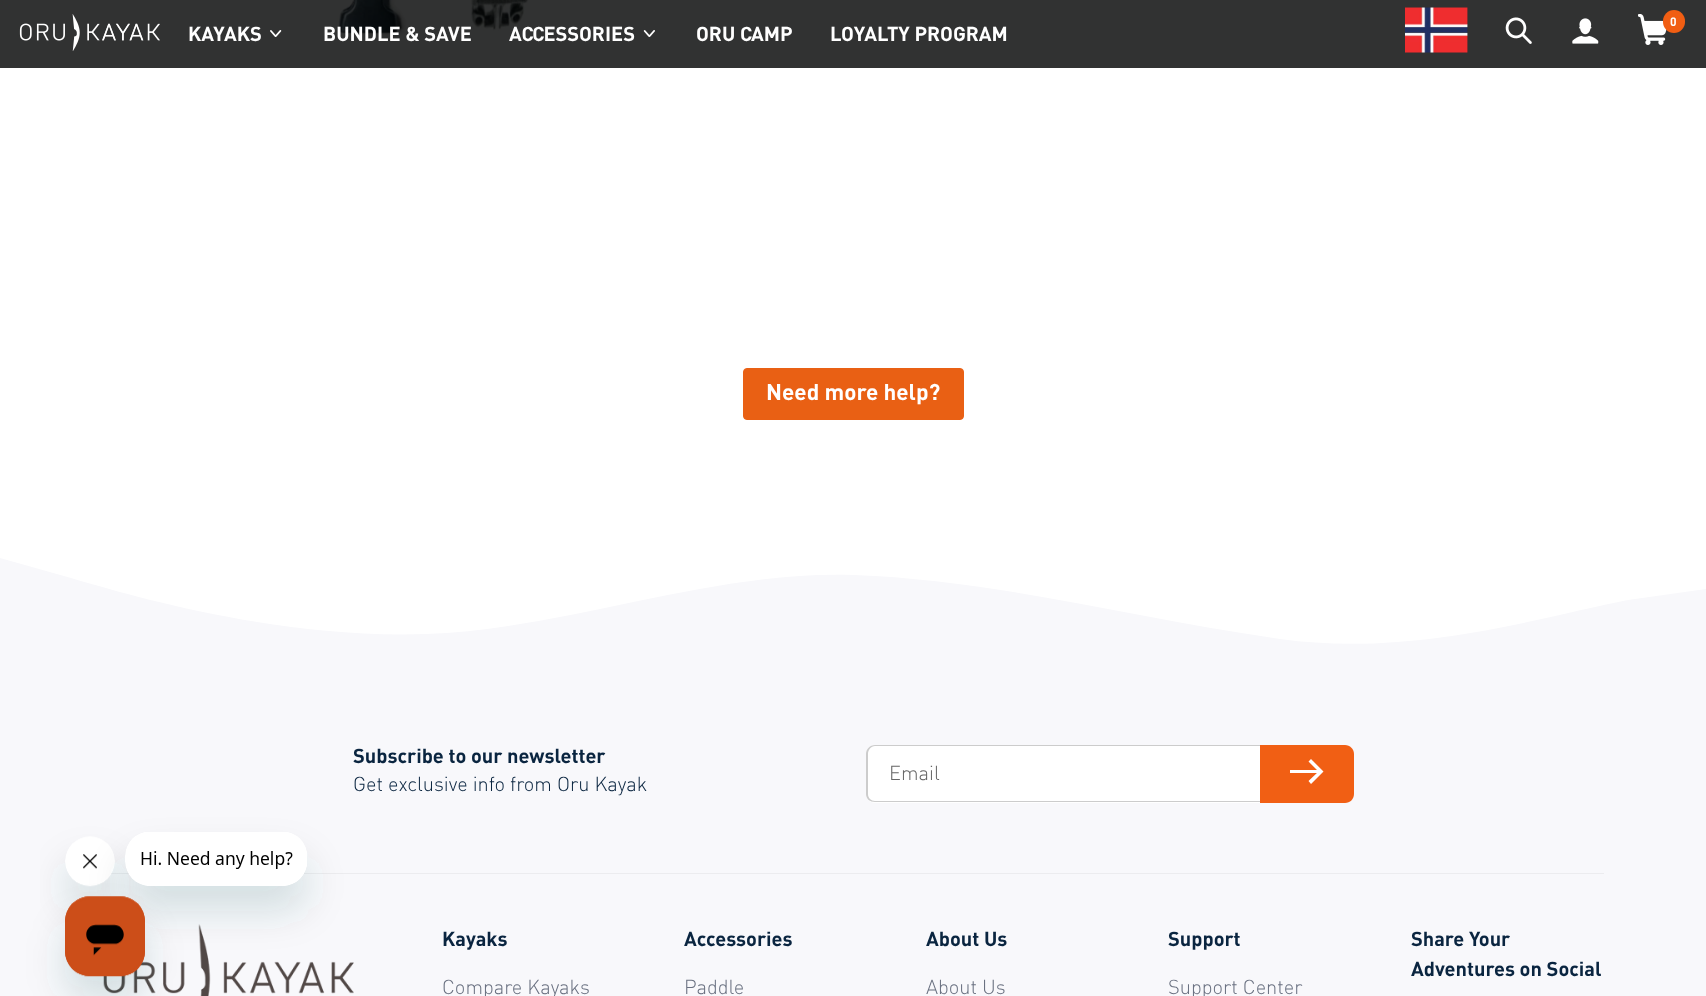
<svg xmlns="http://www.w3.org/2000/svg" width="1706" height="996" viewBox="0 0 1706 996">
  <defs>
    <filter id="blur1" x="-50%" y="-200%" width="200%" height="500%"><feGaussianBlur stdDeviation="19"/></filter>
    <clipPath id="clip1"><rect x="0" y="558" width="1706" height="100"/></clipPath>
  </defs>
  <rect width="100%" height="100%" fill="#ffffff"/>
  <rect x="0" y="0" width="1706" height="68" fill="#313232"/>
  <image x="1405" y="7" width="63" height="46" href="img1.png"/>
  <image x="1505" y="17" width="27" height="27" href="img2.png"/>
  <image x="1572" y="18" width="27" height="26" href="img3.png"/>
  <image x="1638" y="14" width="29" height="31" href="img4.png"/>
  <rect x="1663" y="10" width="22" height="23" rx="11" fill="#f15e13"/>
  <text x="1670" y="26" font-family="DIN" font-size="12" font-weight="bold" fill="#ffffff">0</text>
  <image x="19" y="14" width="141" height="37" href="img5.png"/>
  <text x="188" y="41" font-family="DIN" font-size="20" font-weight="bold" fill="#ffffff">KAYAKS</text>
  <image x="270" y="30" width="12" height="7" href="img6.png"/>
  <image x="336" y="0" width="193" height="38" href="img11.png"/>
  <text x="323" y="41" font-family="DIN" font-size="20" font-weight="bold" fill="#ffffff">BUNDLE &amp; SAVE</text>
  <text x="509" y="41" font-family="DIN" font-size="20" font-weight="bold" fill="#ffffff">ACCESSORIES</text>
  <image x="643" y="30" width="12" height="7" href="img7.png"/>
  <text x="696" y="41" font-family="DIN" font-size="20" font-weight="bold" fill="#ffffff">ORU CAMP</text>
  <text x="830" y="41" font-family="DIN" font-size="20" font-weight="bold" fill="#ffffff">LOYALTY PROGRAM</text>
  <rect x="0" y="658" width="1706" height="338" fill="#f8f8fb"/>
  <rect x="104" y="873" width="1500" height="1" fill="#ececef"/>
  <image x="103" y="924" width="251" height="72" href="img12.png"/>
  <rect x="65" y="861" width="50" height="50" rx="25" fill="#17494d" fill-opacity="0.15" filter="url(#blur1)"/>
  <image x="65" y="836" width="50" height="51" href="img9.png"/>
  <rect x="125" y="856" width="183" height="55" rx="25" fill="#17494d" fill-opacity="0.15" filter="url(#blur1)"/>
  <image x="125" y="832" width="182" height="54" href="img8.png"/>
  <rect x="65" y="921" width="80" height="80" rx="25" fill="#17494d" fill-opacity="0.15" filter="url(#blur1)"/>
  <image x="65" y="896" width="80" height="81" href="img10.png"/>
  <rect x="743.5" y="368.5" width="220" height="51" rx="3.5" fill="#e96014" stroke="#e96014"/>
  <text x="766" y="400" font-family="DIN" font-size="22.5" font-weight="bold" fill="#ffffff">Need more help?</text>
  <g clip-path="url(#clip1)">
    <path d="M0 558L71 578C142 599 284 639 426 634C568 629 710 570 854 575C996 580 1138 619 1280 639C1422 659 1564 610 1635 599L1706 589V661H0Z" fill="#f8f8fb" fill-rule="evenodd"/>
  </g>
  <text x="353" y="763" font-family="DIN" font-size="20" font-weight="bold" fill="#0a2540">Subscribe to our newsletter</text>
  <text x="353" y="791" font-family="DIN" font-size="20" font-weight="300" fill="#0a2540">Get exclusive info from Oru Kayak</text>
  <path d="M875 745H1260V803H875C870 803 866 799 866 794V754C866 749 870 745 875 745Z" fill="#ffffff"/>
  <path d="M875 745H1260V802H875C870 802 866 799 866 794V754C866 749 870 745 875 745ZM875 746H1260V801H875C871 801 868 798 868 794V754C868 750 871 746 875 746Z" fill="#cccccc" fill-rule="evenodd"/>
  <text x="889" y="780" font-family="DIN" font-size="20" font-weight="300" fill="#666666">Email</text>
  <path d="M1260 745H1345C1350 745 1354 749 1354 754V794C1354 799 1350 803 1345 803H1260Z" fill="#f15f14"/>
  <rect x="1290" y="770" width="29" height="3" fill="#ffffff"/>
  <path d="M1311 784L1308.5 781L1318.5 771.5L1308.5 761.5L1311 759L1323.5 771.5Z" fill="#ffffff"/>
  <text x="442" y="946" font-family="DIN" font-size="20" font-weight="bold" fill="#0a2540">Kayaks</text>
  <text x="442" y="994" font-family="DIN" font-size="20" font-weight="300" fill="#6a7181">Compare Kayaks</text>
  <text x="684" y="946" font-family="DIN" font-size="20" font-weight="bold" fill="#0a2540">Accessories</text>
  <text x="684" y="994" font-family="DIN" font-size="20" font-weight="300" fill="#6a7181">Paddle</text>
  <text x="926" y="946" font-family="DIN" font-size="20" font-weight="bold" fill="#0a2540">About Us</text>
  <text x="926" y="994" font-family="DIN" font-size="20" font-weight="300" fill="#6a7181">About Us</text>
  <text x="1168" y="946" font-family="DIN" font-size="20" font-weight="bold" fill="#0a2540">Support</text>
  <text x="1168" y="994" font-family="DIN" font-size="20" font-weight="300" fill="#6a7181">Support Center</text>
  <text x="1411" y="946" font-family="DIN" font-size="20" font-weight="bold" fill="#0a2540">Share Your</text>
  <text x="1411" y="976" font-family="DIN" font-size="20" font-weight="bold" fill="#0a2540">Adventures on Social</text>
</svg>
